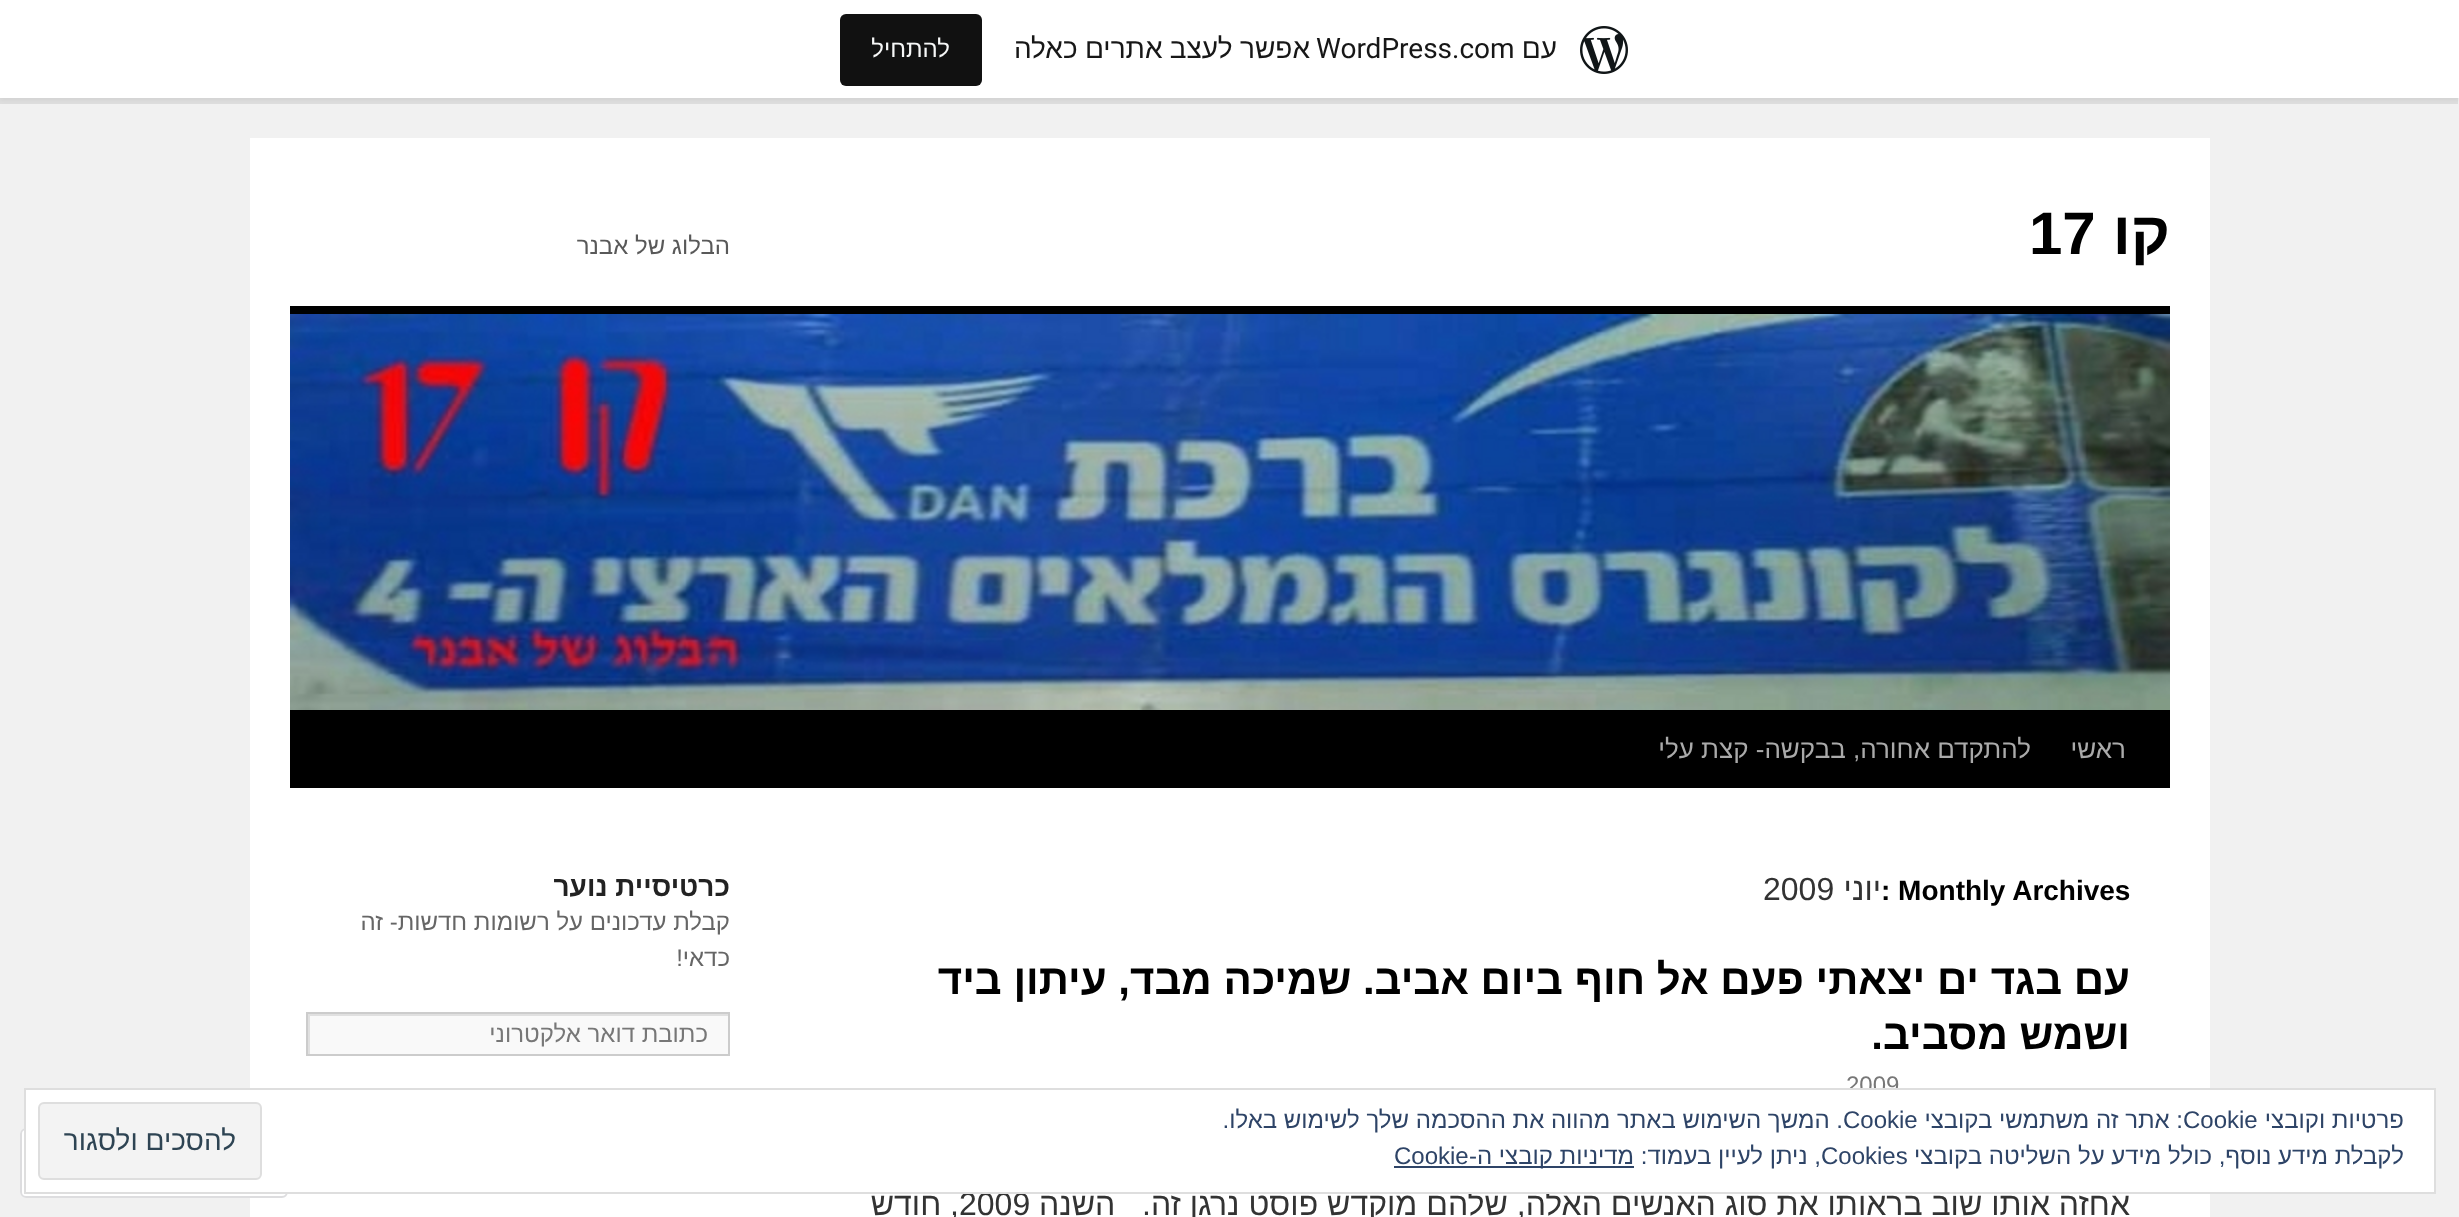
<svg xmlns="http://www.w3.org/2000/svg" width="2459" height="1217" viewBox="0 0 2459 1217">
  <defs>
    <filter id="blur1" x="-50%" y="-200%" width="200%" height="500%"><feGaussianBlur stdDeviation="2"/></filter>
    <clipPath id="clip1"><rect x="308" y="1014" width="420" height="40"/></clipPath>
  </defs>
  <rect width="100%" height="100%" fill="#f1f1f1"/>
  <rect x="0" y="2" width="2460" height="98" fill="#000000" fill-opacity="0.05" filter="url(#blur1)"/>
  <path d="M-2 6V104H2458V98H0V6Z" fill="#000000" fill-opacity="0.08"/>
  <rect x="0" y="0" width="2459" height="98" fill="#ffffff"/>
  <image x="1580" y="26" width="48" height="48" href="img1.png"/>
  <text x="1557" y="58" font-family="Liberation Sans" font-size="28" direction="rtl" fill="#171717">עם</text>
  <text x="1316" y="58" font-family="Roboto" font-size="28" fill="#171717">WordPress.com</text>
  <text x="1310" y="58" word-spacing="-0.5" font-family="Liberation Sans" font-size="28" direction="rtl" fill="#171717">אפשר לעצב אתרים כאלה</text>
  <rect x="840" y="14" width="142" height="72" rx="6" fill="#111111"/>
  <text x="950" y="57" font-family="Liberation Sans" font-size="24" direction="rtl" fill="#f6f7f7">להתחיל</text>
  <rect x="250" y="138" width="1960" height="1079" fill="#ffffff"/>
  <text x="2170" y="254" font-family="Liberation Sans" font-size="60" font-weight="bold" direction="rtl" fill="#000000">קו</text>
  <text x="2029" y="254" font-family="Liberation Sans" font-size="60" font-weight="bold" fill="#000000">17</text>
  <text x="730" y="254" font-family="Liberation Sans" font-size="24" direction="rtl" fill="#595959">הבלוג של אבנר</text>
  <rect x="290" y="306" width="1880" height="8" fill="#000000"/>
  <rect x="290" y="710" width="1880" height="78" fill="#000000"/>
  <image x="290" y="314" width="1880" height="396" href="img2.png"/>
  <text x="2126" y="758" font-family="Liberation Sans" font-size="26" direction="rtl" fill="#aaaaaa">ראשי</text>
  <text x="2031" y="758" font-family="Liberation Sans" font-size="26" direction="rtl" fill="#aaaaaa">להתקדם אחורה, בבקשה- קצת עלי</text>
  <text x="1881" y="900" font-family="Liberation Sans" font-size="28" font-weight="bold" fill="#000000">: Monthly Archives</text>
  <text x="1881" y="900" font-family="Liberation Sans" font-size="32" direction="rtl" fill="#333333">יוני</text>
  <text x="1763" y="900" font-family="Liberation Sans" font-size="32" fill="#333333">2009</text>
  <text x="2130" y="994" font-family="Liberation Sans" font-size="42" font-weight="bold" direction="rtl" fill="#000000">עם בגד ים יצאתי פעם אל חוף ביום אביב. שמיכה מבד, עיתון ביד</text>
  <text x="2130" y="1049" font-family="Liberation Sans" font-size="42" font-weight="bold" direction="rtl" fill="#000000">ושמש מסביב.</text>
  <text x="1846" y="1093" font-family="Liberation Sans" font-size="24" fill="#777777">2009</text>
  <text x="2130" y="1215" font-family="Liberation Sans" font-size="32" direction="rtl" fill="#333333" xml:space="preserve">אחזה אותו שוב בראותו את סוג האנשים האלה, שלהם מוקדש פוסט נרגן זה.   השנה</text>
  <text x="959" y="1215" font-family="Liberation Sans" font-size="32" fill="#333333">2009</text>
  <text x="959" y="1215" font-family="Liberation Sans" font-size="32" direction="rtl" fill="#333333">, חודש</text>
  <text x="730" y="896" font-family="Liberation Sans" font-size="28" font-weight="bold" direction="rtl" fill="#222222">כרטיסיית נוער</text>
  <text x="730" y="930" font-family="Liberation Sans" font-size="24" direction="rtl" fill="#666666">קבלת עדכונים על רשומות חדשות- זה</text>
  <text x="730" y="966" font-family="Liberation Sans" font-size="24" direction="rtl" fill="#666666">כדאי!</text>
  <rect x="310" y="1016" width="418" height="38" fill="#f9f9f9"/>
  <g clip-path="url(#clip1)">
    <path d="M110 816H926V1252H110ZM310 1016H730V1056H310Z" fill="#e0e0e0" fill-rule="evenodd"/>
  </g>
  <rect x="307" y="1013" width="422" height="42" fill="none" stroke="#cccccc" stroke-width="2"/>
  <text x="708" y="1042" font-family="Liberation Sans" font-size="24" direction="rtl" fill="#777777">כתובת דואר אלקטרוני</text>
  <rect x="20" y="1128" width="268" height="70" rx="6" fill="#ffffff" fill-opacity="0.98"/>
  <rect x="21" y="1129" width="266" height="68" rx="5" fill="none" stroke="#dcdcde" stroke-opacity="0.98" stroke-width="2"/>
  <rect x="25" y="1089" width="2410" height="104" fill="#ffffff" stroke="#dedede" stroke-width="2"/>
  <text x="2404" y="1128" font-family="Liberation Sans" font-size="24" direction="rtl" fill="#2e4467">פרטיות וקובצי</text>
  <text x="2183" y="1128" font-family="Liberation Sans" font-size="24" fill="#2e4467">Cookie</text>
  <text x="2183" y="1128" font-family="Liberation Sans" font-size="24" direction="rtl" fill="#2e4467">: אתר זה משתמשי בקובצי</text>
  <text x="1843" y="1128" font-family="Liberation Sans" font-size="24" fill="#2e4467">Cookie</text>
  <text x="1843" y="1128" font-family="Liberation Sans" font-size="24" direction="rtl" fill="#2e4467">. המשך השימוש באתר מהווה את ההסכמה שלך לשימוש באלו.</text>
  <rect x="39" y="1103" width="222" height="76" rx="5" fill="#f3f3f3" stroke="#dedede" stroke-width="2"/>
  <text x="236" y="1150" font-family="Liberation Sans" font-size="28" direction="rtl" fill="#2e4453">להסכים ולסגור</text>
  <text x="2404" y="1164" font-family="Liberation Sans" font-size="24" direction="rtl" fill="#2e4467">לקבלת מידע נוסף, כולל מידע על השליטה בקובצי</text>
  <text x="1821" y="1164" font-family="Liberation Sans" font-size="24" fill="#2e4467">Cookies</text>
  <text x="1821" y="1164" font-family="Liberation Sans" font-size="24" direction="rtl" fill="#2e4467">, ניתן לעיין בעמוד:</text>
  <rect x="1394" y="1166" width="240" height="2" fill="#2e4467"/>
  <text x="1634" y="1164" font-family="Liberation Sans" font-size="24" direction="rtl" fill="#2e4467">מדיניות קובצי ה-</text>
  <text x="1394" y="1164" font-family="Liberation Sans" font-size="24" fill="#2e4467">Cookie</text>
</svg>
